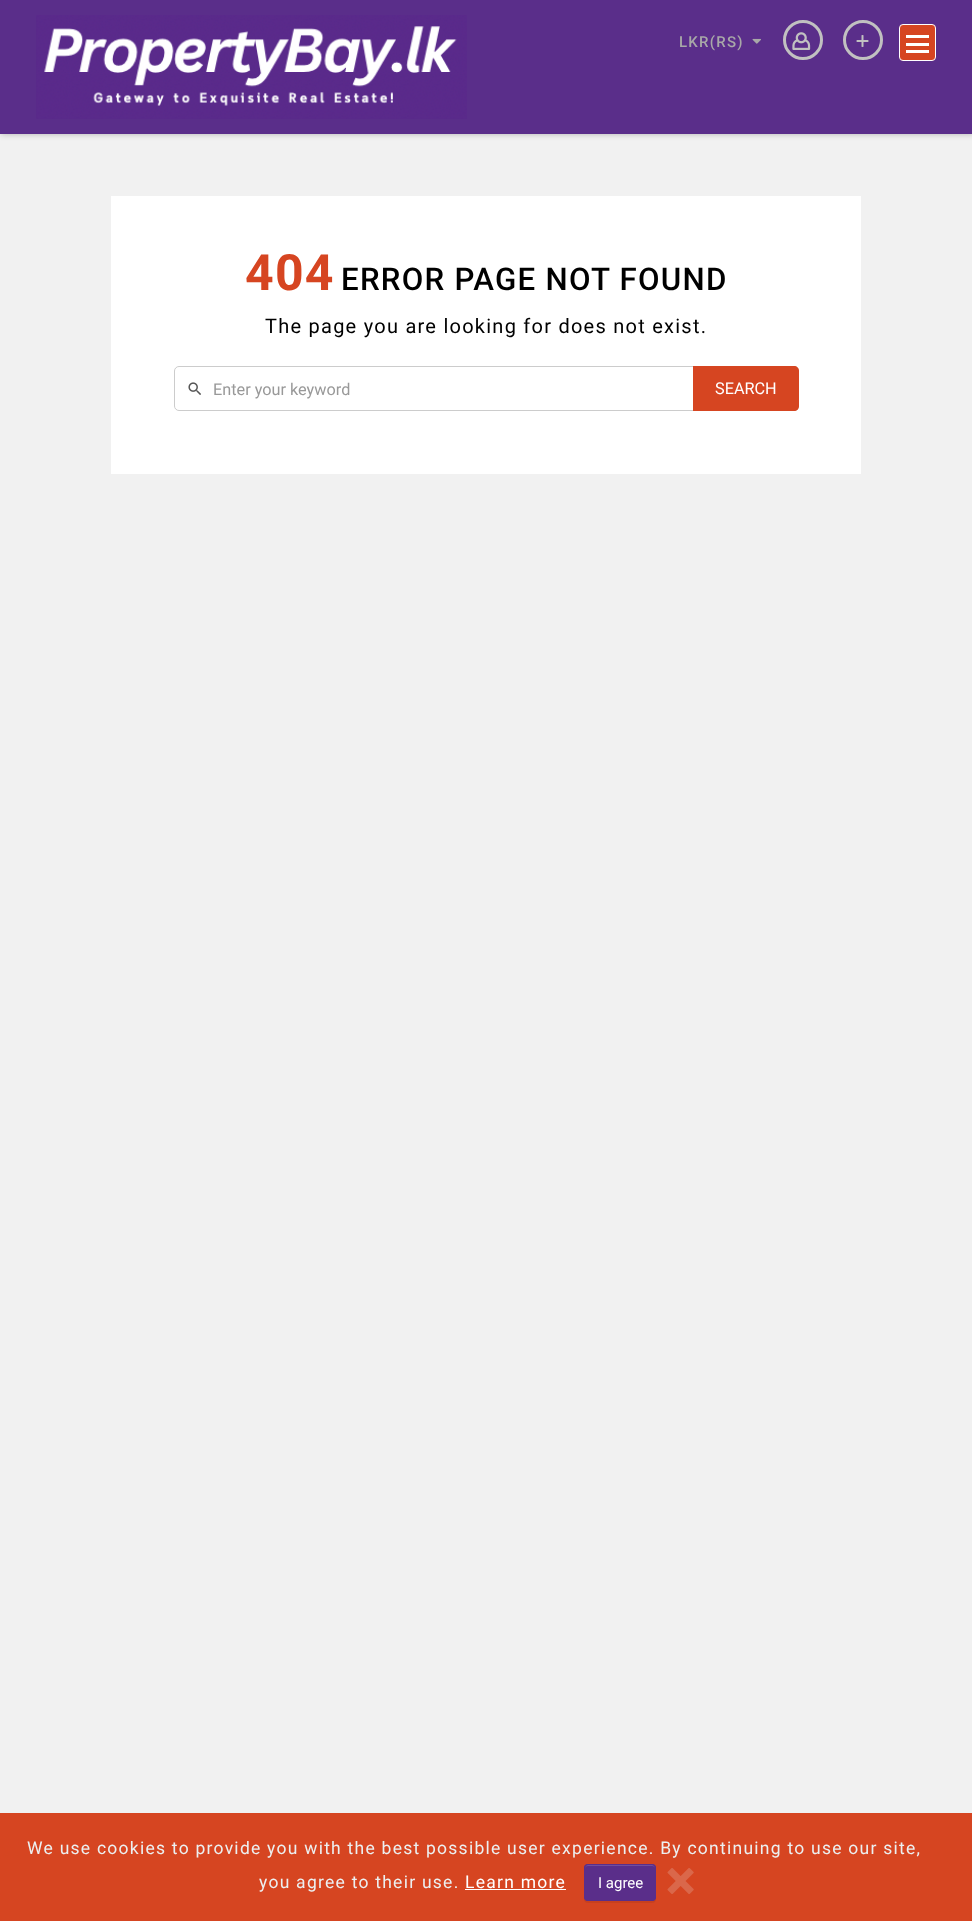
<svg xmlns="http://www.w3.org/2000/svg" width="972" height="1921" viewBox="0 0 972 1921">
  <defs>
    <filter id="blur1" x="-50%" y="-200%" width="200%" height="500%"><feGaussianBlur stdDeviation="3"/></filter>
    <filter id="blur2" x="-50%" y="-200%" width="200%" height="500%"><feGaussianBlur stdDeviation="0.5"/></filter>
  </defs>
  <rect width="100%" height="100%" fill="#f1f1f1"/>
  <rect x="1" y="0" width="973" height="134" fill="#000000" fill-opacity="0.27" filter="url(#blur1)"/>
  <rect x="0" y="0" width="972" height="134" fill="#5a2e8a"/>
  <image x="36" y="15" width="431" height="104" href="img1.png"/>
  <text x="679" y="47" font-family="Roboto" font-size="15" font-weight="500" letter-spacing="1.25" fill="#a8a8a8">LKR(RS)</text>
  <image x="752" y="38" width="9" height="6" href="img2.png"/>
  <circle cx="803" cy="40" r="18.5" fill="none" stroke="#c1c1c1" stroke-width="3"/>
  <image x="792" y="32" width="19" height="18" href="img3.png"/>
  <circle cx="863" cy="40" r="18.5" fill="none" stroke="#c1c1c1" stroke-width="3"/>
  <image x="856" y="35" width="13" height="12" href="img4.png"/>
  <rect x="899.5" y="24.5" width="36" height="36" rx="3.5" fill="#d64521" stroke="#ffffff"/>
  <rect x="906" y="43" width="23" height="3" fill="#ffffff"/>
  <rect x="906" y="35" width="23" height="3" fill="#ffffff"/>
  <rect x="906" y="50" width="23" height="3" fill="#ffffff"/>
  <rect x="111" y="196" width="750" height="278" fill="#ffffff"/>
  <text x="245" y="290" font-family="Roboto" font-size="50" font-weight="bold" letter-spacing="1.25" fill="#d64521">404</text>
  <text x="341" y="290" font-family="Roboto" font-size="31.25" font-weight="500" letter-spacing="1.25" fill="#000000">ERROR PAGE NOT FOUND</text>
  <text x="265" y="333" font-family="Roboto" font-size="20" letter-spacing="1.25" fill="#000000">The page you are looking for does not exist.</text>
  <rect x="174.5" y="366.5" width="624" height="44" rx="4.5" fill="none" stroke="#cccccc"/>
  <image x="188" y="382" width="13" height="13" href="img5.png"/>
  <text x="213" y="395" font-family="Roboto" font-size="16.25" fill="#999999">Enter your keyword</text>
  <path d="M693 366H794C797 366 799 368 799 371V406C799 409 797 411 794 411H693Z" fill="#d64521"/>
  <text x="715" y="394" font-family="Roboto" font-size="16.25" fill="#ffffff">SEARCH</text>
  <rect x="0" y="1813" width="972" height="108" fill="#d64521"/>
  <text x="27" y="1854" font-family="Roboto" font-size="17.5" letter-spacing="1.25" fill="#ecf0f1">We use cookies to provide you with the best possible user experience. By continuing to use our site,</text>
  <text x="259" y="1888" font-family="Roboto" font-size="17.5" letter-spacing="1.25" fill="#ecf0f1">you agree to their use.</text>
  <text x="465" y="1888" font-family="Roboto" font-size="17.5" letter-spacing="1.25" fill="#ffffff">Learn more</text>
  <rect x="465" y="1889" width="101" height="1" fill="#ffffff"/>
  <rect x="584" y="1865" width="72" height="38" rx="4" fill="#000000" fill-opacity="0.07" filter="url(#blur2)"/>
  <rect x="584" y="1864" width="72" height="37" rx="4" fill="#5a2e8a"/>
  <path d="M588 1866H652C654 1866 655 1867 655 1869C655 1862 647 1865 642 1865H598C593 1865 585 1862 585 1869C585 1867 586 1866 588 1866Z" fill="#734d9c"/>
  <rect x="584.5" y="1864.5" width="71" height="36" rx="3.5" fill="none" stroke="#5a2e8a"/>
  <text x="598" y="1888" font-family="Roboto" font-size="15" fill="#ffffff">I agree</text>
  <image x="667" y="1868" width="27" height="26" href="img6.png"/>
</svg>
